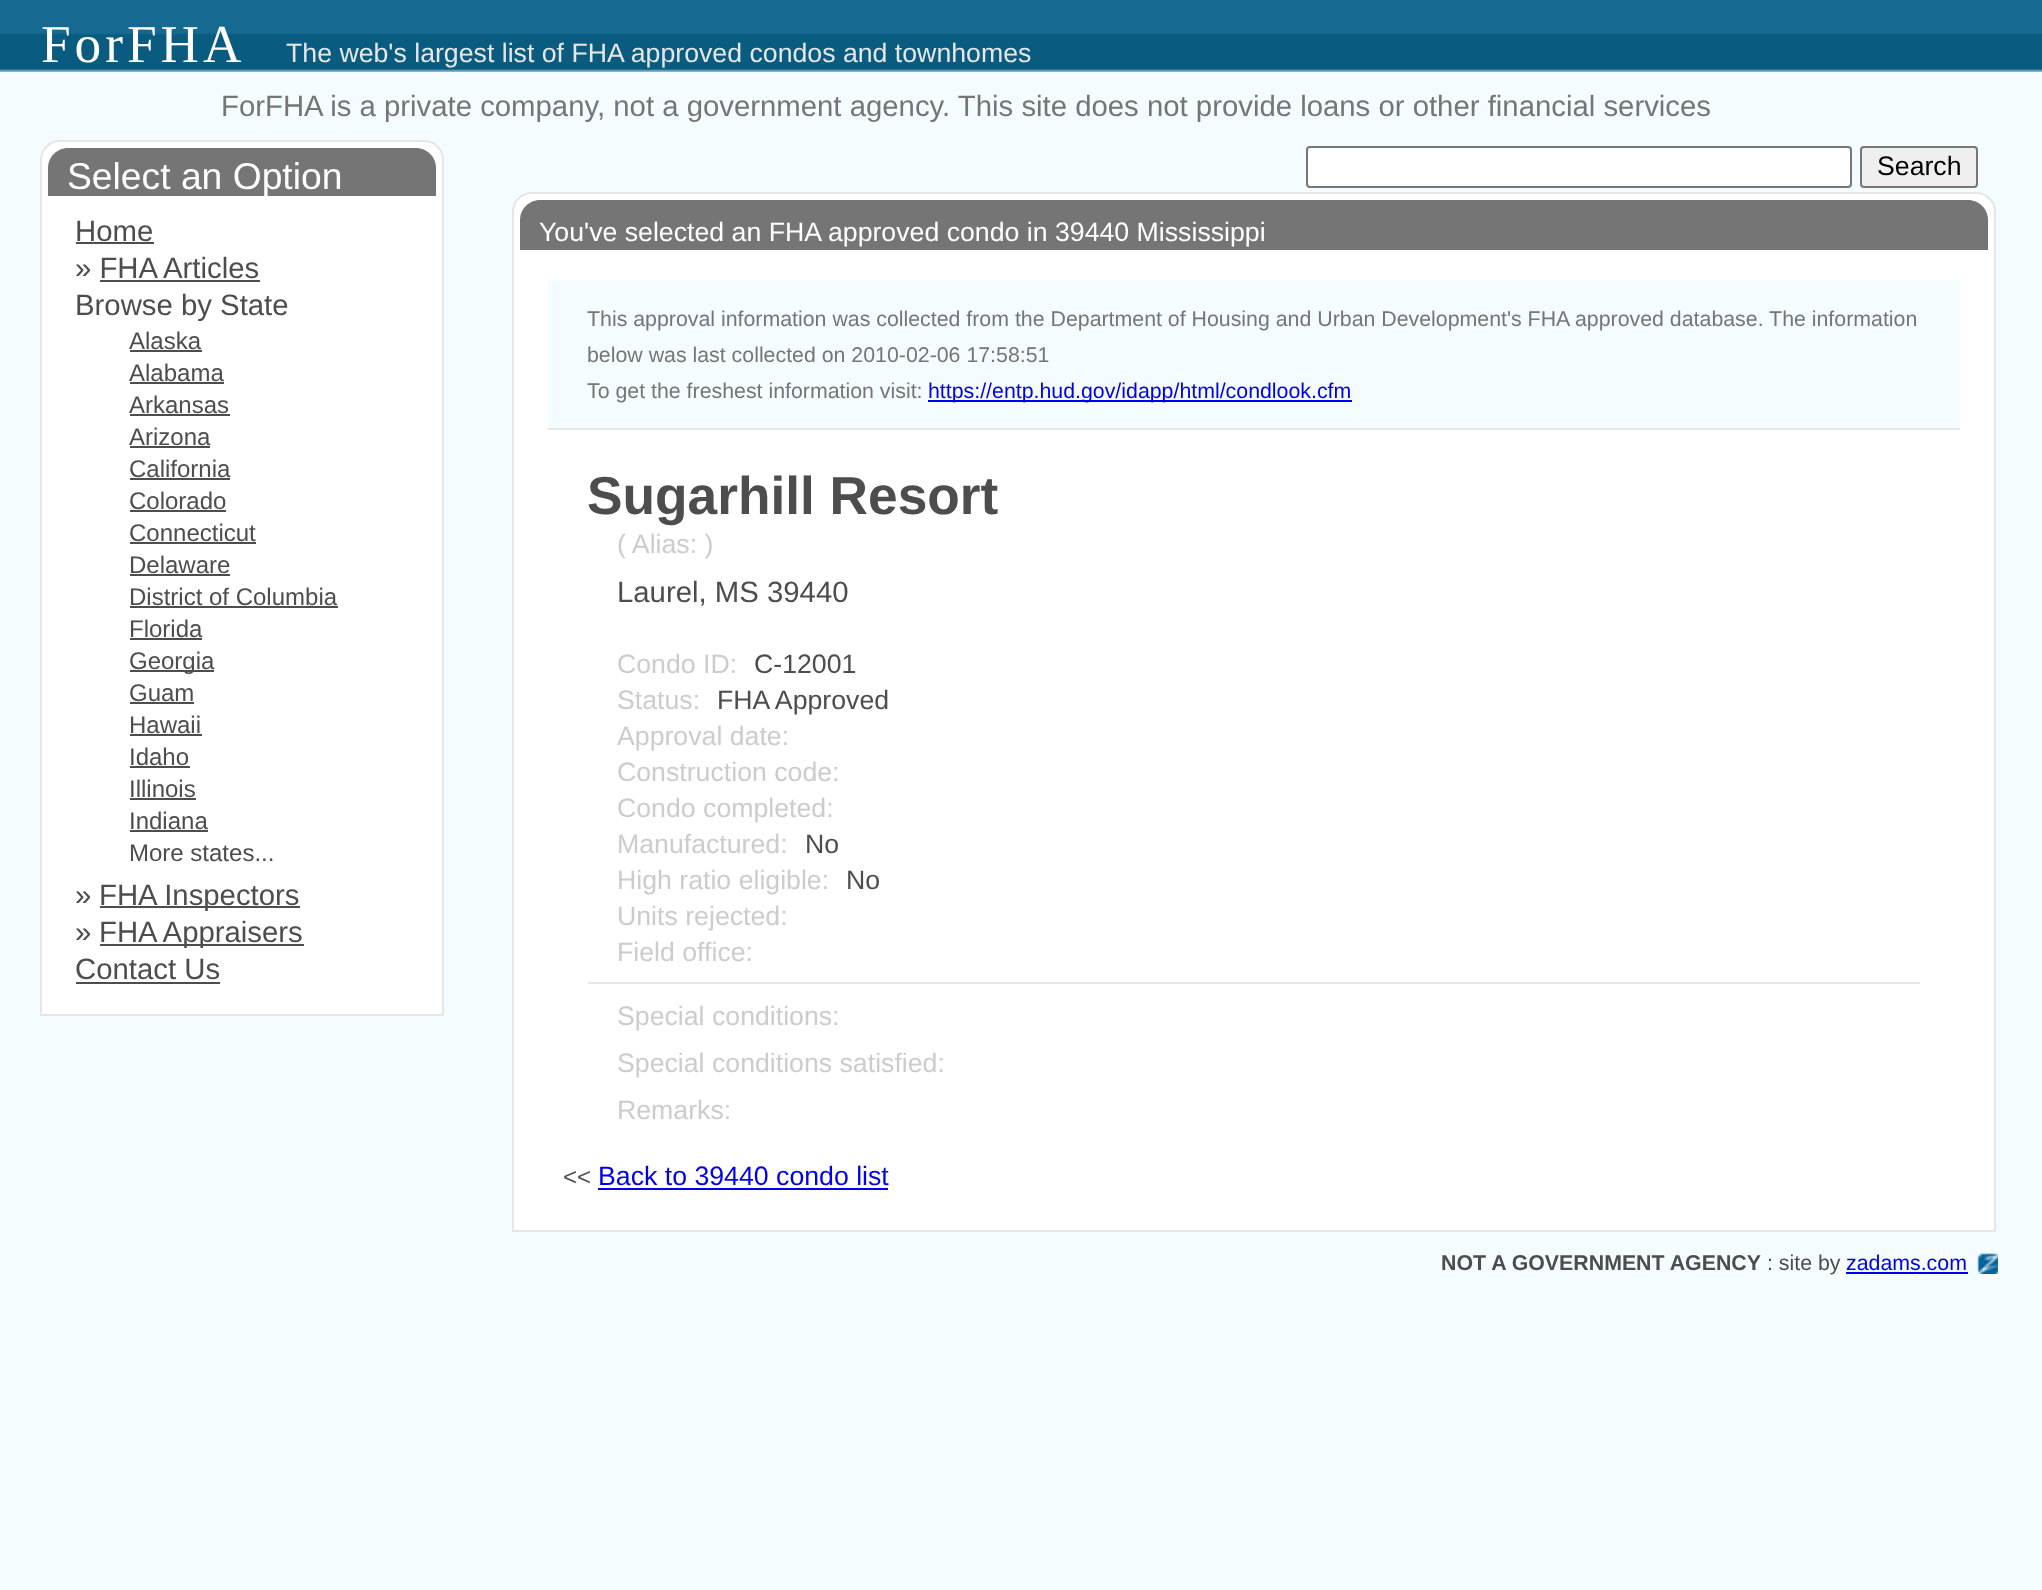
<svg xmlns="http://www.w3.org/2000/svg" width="2042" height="1590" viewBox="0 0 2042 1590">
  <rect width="100%" height="100%" fill="#f5fcff"/>
  <rect x="0" y="0" width="2042" height="33" fill="#166a91"/>
  <image x="0" y="33" width="2042" height="39" href="img1.png"/>
  <text x="41" y="62" font-family="Liberation Serif" font-size="53.25" letter-spacing="4" fill="#ffffff">ForFHA</text>
  <text x="286" y="62" font-family="Liberation Sans" font-size="26.7" fill="#e6e6e6">The web's largest list of FHA approved condos and townhomes</text>
  <text x="221" y="116" font-family="Liberation Sans" font-size="29.33" fill="#757575">ForFHA is a private company, not a government agency. This site does not provide loans or other financial services</text>
  <path d="M60 141H424C434.5 141 443 149.5 443 160V1015H41V160C41 149.5 49.5 141 60 141Z" fill="#ffffff" stroke="#e6e6e6" stroke-width="2"/>
  <path d="M68 148H416C427 148 436 157 436 168V196H48V168C48 157 57 148 68 148Z" fill="#757575"/>
  <text x="67" y="189" font-family="Liberation Sans" font-size="37.25" fill="#ffffff">Select an Option</text>
  <text x="75" y="241" font-family="Liberation Sans" font-size="29.33" fill="#4d4d4d">Home</text>
  <rect x="76" y="242" width="78" height="2" fill="#4d4d4d"/>
  <text x="75" y="278" font-family="Liberation Sans" font-size="29.33" fill="#4d4d4d">» FHA Articles</text>
  <rect x="100" y="280" width="160" height="2" fill="#4d4d4d"/>
  <text x="75" y="315" font-family="Liberation Sans" font-size="29.33" fill="#4d4d4d">Browse by State</text>
  <text x="129" y="349" font-family="Liberation Sans" font-size="24" fill="#4d4d4d">Alaska</text>
  <rect x="130" y="350" width="72" height="2" fill="#4d4d4d"/>
  <text x="129" y="381" font-family="Liberation Sans" font-size="24" fill="#4d4d4d">Alabama</text>
  <rect x="130" y="382" width="94" height="2" fill="#4d4d4d"/>
  <text x="129" y="413" font-family="Liberation Sans" font-size="24" fill="#4d4d4d">Arkansas</text>
  <rect x="130" y="414" width="100" height="2" fill="#4d4d4d"/>
  <text x="129" y="445" font-family="Liberation Sans" font-size="24" fill="#4d4d4d">Arizona</text>
  <rect x="130" y="446" width="80" height="2" fill="#4d4d4d"/>
  <text x="129" y="477" font-family="Liberation Sans" font-size="24" fill="#4d4d4d">California</text>
  <rect x="130" y="478" width="100" height="2" fill="#4d4d4d"/>
  <text x="129" y="509" font-family="Liberation Sans" font-size="24" fill="#4d4d4d">Colorado</text>
  <rect x="130" y="510" width="96" height="2" fill="#4d4d4d"/>
  <text x="129" y="541" font-family="Liberation Sans" font-size="24" fill="#4d4d4d">Connecticut</text>
  <rect x="130" y="542" width="126" height="2" fill="#4d4d4d"/>
  <text x="129" y="573" font-family="Liberation Sans" font-size="24" fill="#4d4d4d">Delaware</text>
  <rect x="130" y="574" width="100" height="2" fill="#4d4d4d"/>
  <text x="129" y="605" font-family="Liberation Sans" font-size="24" fill="#4d4d4d">District of Columbia</text>
  <rect x="130" y="606" width="208" height="2" fill="#4d4d4d"/>
  <text x="129" y="637" font-family="Liberation Sans" font-size="24" fill="#4d4d4d">Florida</text>
  <rect x="130" y="638" width="72" height="2" fill="#4d4d4d"/>
  <rect x="130" y="670" width="84" height="2" fill="#4d4d4d"/>
  <text x="129" y="669" font-family="Liberation Sans" font-size="24" fill="#4d4d4d">Georgia</text>
  <text x="129" y="701" font-family="Liberation Sans" font-size="24" fill="#4d4d4d">Guam</text>
  <rect x="130" y="702" width="64" height="2" fill="#4d4d4d"/>
  <text x="129" y="733" font-family="Liberation Sans" font-size="24" fill="#4d4d4d">Hawaii</text>
  <rect x="130" y="734" width="72" height="2" fill="#4d4d4d"/>
  <text x="129" y="765" font-family="Liberation Sans" font-size="24" fill="#4d4d4d">Idaho</text>
  <rect x="130" y="766" width="60" height="2" fill="#4d4d4d"/>
  <text x="129" y="797" font-family="Liberation Sans" font-size="24" fill="#4d4d4d">Illinois</text>
  <rect x="130" y="798" width="66" height="2" fill="#4d4d4d"/>
  <text x="129" y="829" font-family="Liberation Sans" font-size="24" fill="#4d4d4d">Indiana</text>
  <rect x="130" y="830" width="78" height="2" fill="#4d4d4d"/>
  <text x="129" y="861" font-family="Liberation Sans" font-size="24" fill="#4d4d4d">More states...</text>
  <text x="75" y="905" font-family="Liberation Sans" font-size="29.33" fill="#4d4d4d">»</text>
  <rect x="100" y="906" width="200" height="2" fill="#4d4d4d"/>
  <text x="99" y="905" font-family="Liberation Sans" font-size="29.33" fill="#4d4d4d">FHA Inspectors</text>
  <text x="75" y="942" font-family="Liberation Sans" font-size="29.33" fill="#4d4d4d">»</text>
  <rect x="100" y="944" width="204" height="2" fill="#4d4d4d"/>
  <text x="99" y="942" font-family="Liberation Sans" font-size="29.33" fill="#4d4d4d">FHA Appraisers</text>
  <text x="75" y="979" font-family="Liberation Sans" font-size="29.33" fill="#4d4d4d">Contact Us</text>
  <rect x="76" y="982" width="144" height="2" fill="#4d4d4d"/>
  <path d="M532 193H1976C1986.5 193 1995 201.5 1995 212V1231H513V212C513 201.5 521.5 193 532 193Z" fill="#ffffff" stroke="#e6e6e6" stroke-width="2"/>
  <path d="M540 200H1968C1979 200 1988 209 1988 220V250H520V220C520 209 529 200 540 200Z" fill="#757575"/>
  <text x="539" y="241" font-family="Liberation Sans" font-size="26.7" fill="#ffffff">You've selected an FHA approved condo in 39440 Mississippi</text>
  <rect x="548" y="280" width="1412" height="148" fill="#f5fcff"/>
  <rect x="548" y="428" width="1412" height="2" fill="#e6e6e6"/>
  <text x="587" y="326" font-family="Liberation Sans" font-size="21.33" fill="#757575">This approval information was collected from the Department of Housing and Urban Development's FHA approved database. The information</text>
  <text x="587" y="362" font-family="Liberation Sans" font-size="21.33" fill="#757575">below was last collected on 2010-02-06 17:58:51</text>
  <text x="587" y="398" font-family="Liberation Sans" font-size="21.33" fill="#757575">To get the freshest information visit:</text>
  <rect x="928" y="400" width="424" height="2" fill="#0000ee"/>
  <text x="928" y="398" font-family="Liberation Sans" font-size="21.33" fill="#0000ee">https://entp.hud.gov/idapp/html/condlook.cfm</text>
  <text x="587" y="514" font-family="Liberation Sans" font-size="53.25" font-weight="bold" fill="#4d4d4d">Sugarhill Resort</text>
  <text x="617" y="553" font-family="Liberation Sans" font-size="26.7" fill="#cccccc">( Alias: )</text>
  <text x="617" y="602" font-family="Liberation Sans" font-size="29.33" fill="#4d4d4d">Laurel, MS 39440</text>
  <text x="617" y="673" font-family="Liberation Sans" font-size="26.7" fill="#cccccc">Condo ID:</text>
  <text x="754" y="673" font-family="Liberation Sans" font-size="26.7" fill="#4d4d4d">C-12001</text>
  <text x="617" y="709" font-family="Liberation Sans" font-size="26.7" fill="#cccccc">Status:</text>
  <text x="717" y="709" font-family="Liberation Sans" font-size="26.7" fill="#4d4d4d">FHA Approved</text>
  <text x="617" y="745" font-family="Liberation Sans" font-size="26.7" fill="#cccccc">Approval date:</text>
  <text x="617" y="781" font-family="Liberation Sans" font-size="26.7" fill="#cccccc">Construction code:</text>
  <text x="617" y="817" font-family="Liberation Sans" font-size="26.7" fill="#cccccc">Condo completed:</text>
  <text x="617" y="853" font-family="Liberation Sans" font-size="26.7" fill="#cccccc">Manufactured:</text>
  <text x="805" y="853" font-family="Liberation Sans" font-size="26.7" fill="#4d4d4d">No</text>
  <text x="617" y="889" font-family="Liberation Sans" font-size="26.7" fill="#cccccc">High ratio eligible:</text>
  <text x="846" y="889" font-family="Liberation Sans" font-size="26.7" fill="#4d4d4d">No</text>
  <text x="617" y="925" font-family="Liberation Sans" font-size="26.7" fill="#cccccc">Units rejected:</text>
  <text x="617" y="961" font-family="Liberation Sans" font-size="26.7" fill="#cccccc">Field office:</text>
  <rect x="588" y="982" width="1332" height="2" fill="#e6e6e6"/>
  <text x="617" y="1025" font-family="Liberation Sans" font-size="26.7" fill="#cccccc">Special conditions:</text>
  <text x="617" y="1072" font-family="Liberation Sans" font-size="26.7" fill="#cccccc">Special conditions satisfied:</text>
  <text x="617" y="1119" font-family="Liberation Sans" font-size="26.7" fill="#cccccc">Remarks:</text>
  <text x="563" y="1185" font-family="Liberation Sans" font-size="24" fill="#4d4d4d">&lt;&lt;</text>
  <text x="598" y="1185" font-family="Liberation Sans" font-size="26.7" fill="#0000ee">Back to 39440 condo list</text>
  <rect x="598" y="1188" width="290" height="2" fill="#0000ee"/>
  <rect x="1307" y="147" width="544" height="40" rx="3" fill="#ffffff" stroke="#767676" stroke-width="2"/>
  <rect x="1861" y="147" width="116" height="40" rx="3" fill="#efefef" stroke="#767676" stroke-width="2"/>
  <text x="1877" y="175" font-family="Liberation Sans" font-size="26.7" fill="#000000">Search</text>
  <text x="1441" y="1270" font-family="Liberation Sans" font-size="21.33" font-weight="bold" fill="#4d4d4d">NOT A GOVERNMENT AGENCY</text>
  <text x="1767" y="1270" font-family="Liberation Sans" font-size="21.33" fill="#4d4d4d">: site by</text>
  <text x="1846" y="1270" font-family="Liberation Sans" font-size="21.33" fill="#0000ee">zadams.com</text>
  <rect x="1846" y="1272" width="122" height="2" fill="#0000ee"/>
  <image x="1977" y="1253" width="21" height="21" href="img2.png"/>
</svg>
